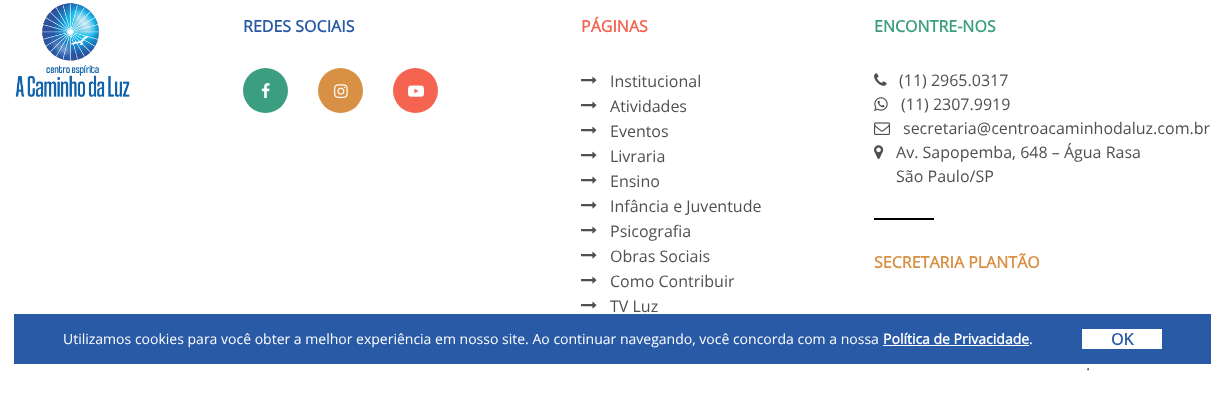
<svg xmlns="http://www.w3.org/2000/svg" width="1225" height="396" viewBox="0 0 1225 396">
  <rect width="100%" height="100%" fill="#ffffff"/>
  <image x="15" y="3" width="115" height="94" href="img1.png"/>
  <text x="243" y="32" font-family="Open Sans" font-size="16" font-weight="bold" fill="#295aa6">REDES SOCIAIS</text>
  <circle cx="265.5" cy="90.5" r="22.5" fill="#3c9e81"/>
  <image x="261" y="83" width="9" height="15" href="img2.png"/>
  <circle cx="340.5" cy="90.5" r="22.5" fill="#d89044"/>
  <image x="334" y="84" width="14" height="14" href="img3.png"/>
  <circle cx="415.5" cy="90.5" r="22.5" fill="#f46451"/>
  <image x="408" y="85" width="16" height="12" href="img4.png"/>
  <text x="581" y="32" font-family="Open Sans" font-size="16" font-weight="bold" fill="#f46451">PÁGINAS</text>
  <image x="581" y="76" width="16" height="8" href="img5.png"/>
  <text x="610" y="87" font-family="Open Sans" font-size="16" fill="#505050">Institucional</text>
  <image x="581" y="101" width="16" height="8" href="img5.png"/>
  <text x="610" y="112" font-family="Open Sans" font-size="16" fill="#505050">Atividades</text>
  <image x="581" y="126" width="16" height="8" href="img5.png"/>
  <text x="610" y="137" font-family="Open Sans" font-size="16" fill="#505050">Eventos</text>
  <image x="581" y="151" width="16" height="8" href="img5.png"/>
  <text x="610" y="162" font-family="Open Sans" font-size="16" fill="#505050">Livraria</text>
  <image x="581" y="176" width="16" height="8" href="img5.png"/>
  <text x="610" y="187" font-family="Open Sans" font-size="16" fill="#505050">Ensino</text>
  <image x="581" y="201" width="16" height="8" href="img5.png"/>
  <text x="610" y="212" font-family="Open Sans" font-size="16" fill="#505050">Infância e Juventude</text>
  <image x="581" y="226" width="16" height="8" href="img5.png"/>
  <text x="610" y="237" font-family="Open Sans" font-size="16" fill="#505050">Psicografia</text>
  <image x="581" y="251" width="16" height="8" href="img5.png"/>
  <text x="610" y="262" font-family="Open Sans" font-size="16" fill="#505050">Obras Sociais</text>
  <image x="581" y="276" width="16" height="8" href="img5.png"/>
  <text x="610" y="287" font-family="Open Sans" font-size="16" fill="#505050">Como Contribuir</text>
  <image x="581" y="301" width="16" height="8" href="img5.png"/>
  <text x="610" y="312" font-family="Open Sans" font-size="16" fill="#505050">TV Luz</text>
  <text x="874" y="32" font-family="Open Sans" font-size="16" font-weight="bold" fill="#3c9e81">ENCONTRE-NOS</text>
  <image x="874" y="73" width="13" height="13" href="img6.png"/>
  <text x="899" y="86" font-family="Open Sans" font-size="16" fill="#505050">(11) 2965.0317</text>
  <image x="874" y="97" width="14" height="14" href="img7.png"/>
  <text x="901" y="110" font-family="Open Sans" font-size="16" fill="#505050">(11) 2307.9919</text>
  <image x="874" y="122" width="16" height="13" href="img8.png"/>
  <text x="903" y="134" font-family="Open Sans" font-size="16" fill="#505050">secretaria@centroacaminhodaluz.com.br</text>
  <image x="874" y="145" width="10" height="14" href="img9.png"/>
  <text x="896" y="158" font-family="Open Sans" font-size="16" fill="#505050">Av. Sapopemba, 648 – Água Rasa</text>
  <text x="896" y="182" font-family="Open Sans" font-size="16" fill="#505050">São Paulo/SP</text>
  <rect x="874" y="218" width="60" height="2" fill="#000000"/>
  <text x="874" y="268" font-family="Open Sans" font-size="16" font-weight="bold" fill="#d89044">SECRETARIA PLANTÃO</text>
  <text x="1086" y="370" font-family="Open Sans" font-size="16" fill="#505050">.</text>
  <rect x="14" y="314" width="1197" height="50" fill="#295aa6"/>
  <text x="63" y="344" font-family="Open Sans" font-size="14" fill="#ffffff">Utilizamos cookies para você obter a melhor experiência em nosso site. Ao continuar navegando, você concorda com a nossa</text>
  <text x="883" y="344" font-family="Open Sans" font-size="14" font-weight="bold" fill="#ffffff">Política de Privacidade</text>
  <rect x="883" y="345" width="146" height="1" fill="#ffffff"/>
  <text x="1029" y="344" font-family="Open Sans" font-size="14" fill="#ffffff">.</text>
  <rect x="1082" y="329" width="80" height="20" fill="#ffffff"/>
  <text x="1111" y="345" font-family="Open Sans" font-size="16" font-weight="bold" fill="#295aa6">OK</text>
</svg>
